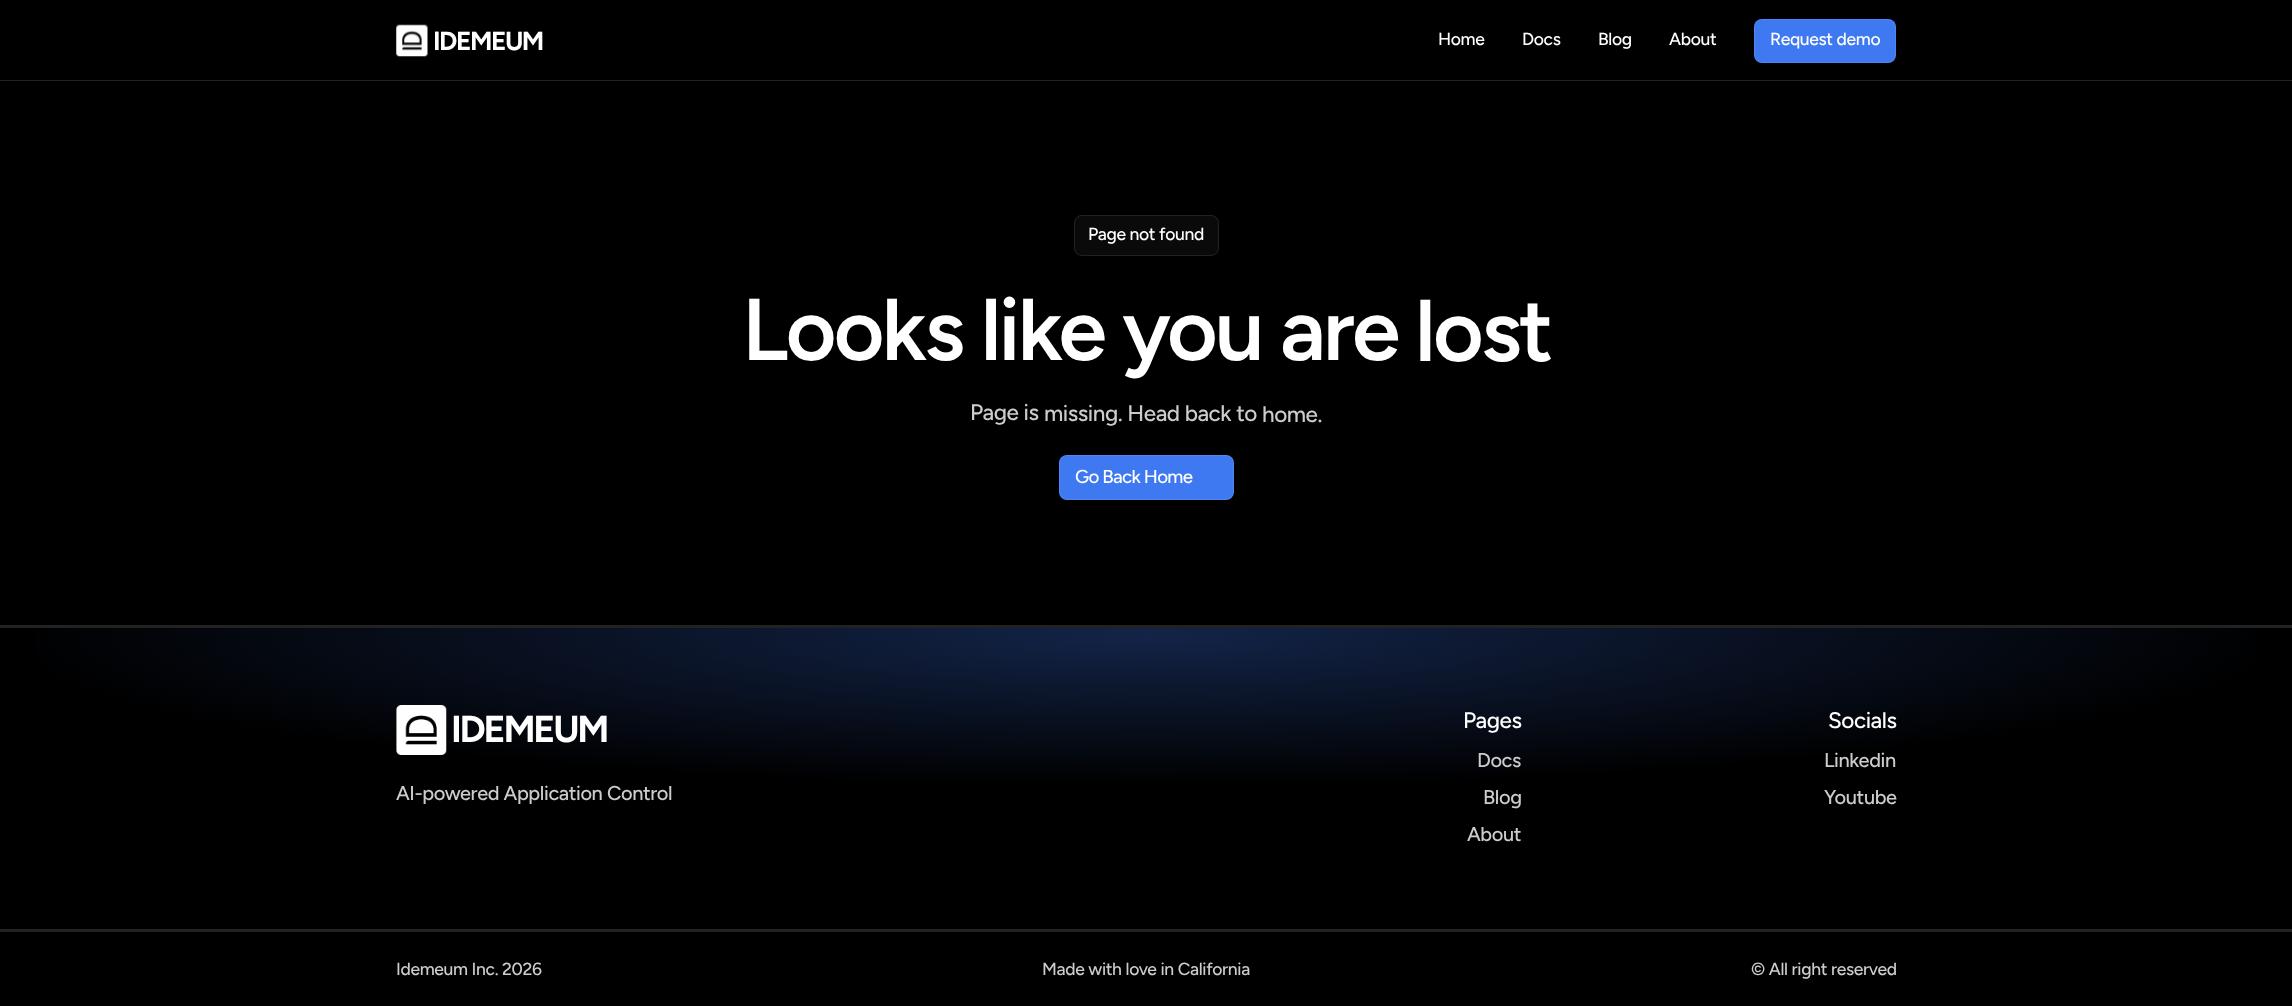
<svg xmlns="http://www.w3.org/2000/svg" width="2292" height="1006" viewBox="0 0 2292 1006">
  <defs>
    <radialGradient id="g1" gradientUnits="userSpaceOnUse" cx="0" cy="0" r="1" gradientTransform="matrix(1146 0 0 152 1146 635)"><stop offset="0" stop-color="#132448"/><stop offset="1" stop-color="#000000"/></radialGradient>
  </defs>
  <rect width="100%" height="100%" fill="#000000"/>
  <image x="396" y="24" width="32" height="33" href="img1.png"/>
  <text x="433" y="50" font-family="Figtree" font-size="26.25" font-weight="bold" letter-spacing="-1.5" fill="#ffffff">IDEMEUM</text>
  <text x="1438" y="45" font-family="Figtree" font-size="17.5" font-weight="500" letter-spacing="-0.35" fill="#ffffff">Home</text>
  <text x="1522" y="45" font-family="Figtree" font-size="17.5" font-weight="500" letter-spacing="-0.35" fill="#ffffff">Docs</text>
  <text x="1598" y="45" font-family="Figtree" font-size="17.5" font-weight="500" letter-spacing="-0.35" fill="#ffffff">Blog</text>
  <text x="1669" y="45" font-family="Figtree" font-size="17.5" font-weight="500" letter-spacing="-0.35" fill="#ffffff">About</text>
  <rect x="1754" y="19" width="142" height="44" rx="8" fill="#3e79f1"/>
  <rect x="1754.5" y="19.5" width="141" height="43" rx="7.5" fill="none" stroke="#ffffff" stroke-opacity="0.1"/>
  <text x="1770" y="45" font-family="Figtree" font-size="17.5" font-weight="500" letter-spacing="-0.35" fill="#ffffff">Request demo</text>
  <rect x="0" y="80" width="2292" height="1" fill="#222222"/>
  <rect x="1074" y="215" width="145" height="41" rx="8" fill="#0a0a0a"/>
  <rect x="1074.5" y="215.5" width="144" height="40" rx="7.5" fill="none" stroke="#222222"/>
  <text x="1088" y="240" font-family="Figtree" font-size="17.5" font-weight="500" letter-spacing="-0.35" fill="#ffffff">Page not found</text>
  <text x="742" y="360" font-family="Figtree" font-size="87.5" font-weight="600" letter-spacing="-2.75" fill="#ffffff">Looks like you are</text>
  <text x="1415" y="361" font-family="Figtree" font-size="87.5" font-weight="600" letter-spacing="-2.75" fill="#ffffff">lost</text>
  <text x="970" y="420" font-family="Figtree" font-size="22.5" font-weight="500" letter-spacing="-0.45" fill="#cccccc">Page is</text>
  <text x="1044" y="421" font-family="Figtree" font-size="22.5" font-weight="500" letter-spacing="-0.45" fill="#cccccc">missing. Head back to</text>
  <text x="1262" y="422" font-family="Figtree" font-size="22.5" font-weight="500" letter-spacing="-0.45" fill="#cccccc">home.</text>
  <rect x="1059" y="455" width="175" height="45" rx="8" fill="#3e79f1"/>
  <rect x="1059.5" y="455.5" width="174" height="44" rx="7.5" fill="none" stroke="#ffffff" stroke-opacity="0.1"/>
  <text x="1075" y="483" font-family="Figtree" font-size="18.75" font-weight="500" letter-spacing="-0.75" fill="#ffffff">Go Back Home</text>
  <rect x="36" y="628" width="2220" height="154" fill="url(#g1)"/>
  <rect x="0" y="625" width="2292" height="3" fill="#222222"/>
  <image x="396" y="705" width="51" height="50" href="img2.png"/>
  <text x="451" y="742" font-family="Figtree" font-size="37.5" font-weight="bold" letter-spacing="-2.25" fill="#ffffff">IDEMEUM</text>
  <text x="396" y="800" font-family="Figtree" font-size="20" font-weight="500" letter-spacing="-0.4" fill="#cccccc">AI-powered Application Control</text>
  <text x="1463" y="728" font-family="Figtree" font-size="22.5" font-weight="500" letter-spacing="-0.45" fill="#ffffff">Pages</text>
  <text x="1477" y="767" font-family="Figtree" font-size="20" font-weight="500" letter-spacing="-0.4" fill="#cccccc">Docs</text>
  <text x="1483" y="804" font-family="Figtree" font-size="20" font-weight="500" letter-spacing="-0.4" fill="#cccccc">Blog</text>
  <text x="1467" y="841" font-family="Figtree" font-size="20" font-weight="500" letter-spacing="-0.4" fill="#cccccc">About</text>
  <text x="1828" y="728" font-family="Figtree" font-size="22.5" font-weight="500" letter-spacing="-0.45" fill="#ffffff">Socials</text>
  <text x="1824" y="767" font-family="Figtree" font-size="20" font-weight="500" letter-spacing="-0.4" fill="#cccccc">Linkedin</text>
  <text x="1824" y="804" font-family="Figtree" font-size="20" font-weight="500" letter-spacing="-0.4" fill="#cccccc">Youtube</text>
  <rect x="0" y="929" width="2292" height="3" fill="#222222"/>
  <text x="396" y="975" font-family="Figtree" font-size="17.5" font-weight="500" letter-spacing="-0.35" fill="#cccccc">Idemeum Inc. 2026</text>
  <text x="1042" y="975" font-family="Figtree" font-size="17.5" font-weight="500" letter-spacing="-0.35" fill="#cccccc">Made with love in California</text>
  <text x="1751" y="975" font-family="Figtree" font-size="17.5" font-weight="500" letter-spacing="-0.35" fill="#cccccc">© All right reserved</text>
</svg>
